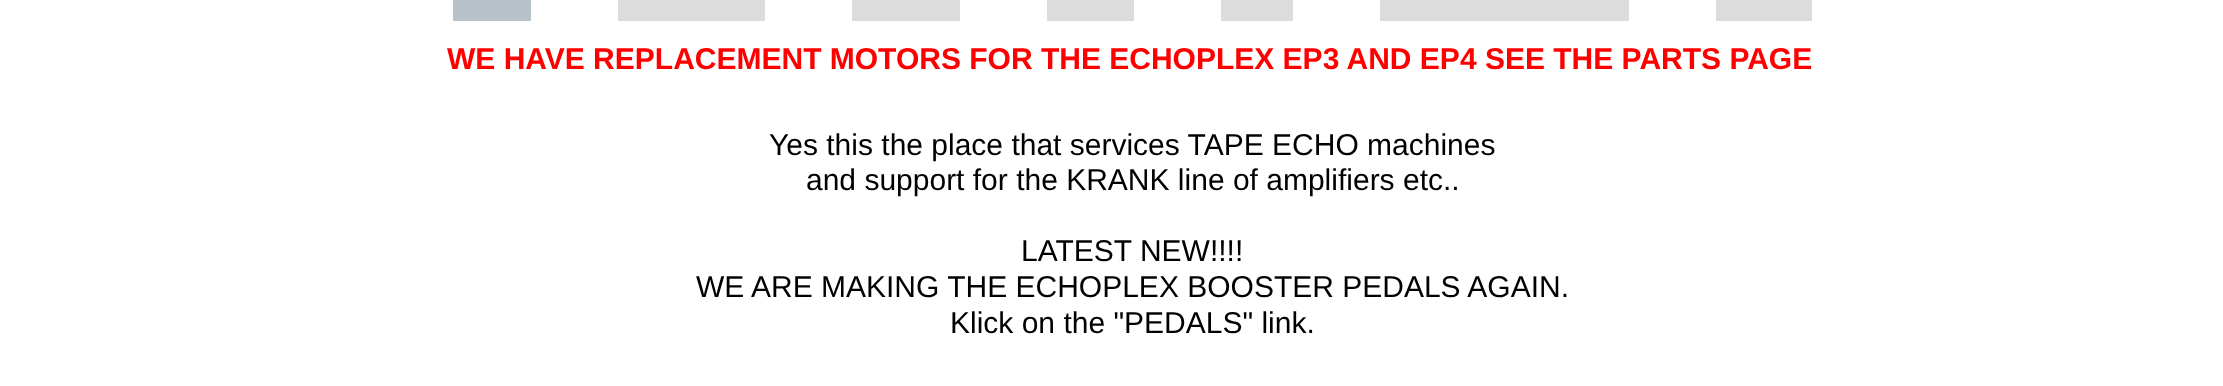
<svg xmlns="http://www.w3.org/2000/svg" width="2223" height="386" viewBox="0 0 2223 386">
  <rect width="100%" height="100%" fill="#ffffff"/>
  <rect x="453" y="0" width="78" height="21" fill="#b7c2c8"/>
  <rect x="618" y="0" width="147" height="21" fill="#dcdcdc"/>
  <rect x="852" y="0" width="108" height="21" fill="#dcdcdc"/>
  <rect x="1047" y="0" width="87" height="21" fill="#dcdcdc"/>
  <rect x="1221" y="0" width="72" height="21" fill="#dcdcdc"/>
  <rect x="1380" y="0" width="249" height="21" fill="#dcdcdc"/>
  <rect x="1716" y="0" width="96" height="21" fill="#dcdcdc"/>
  <text x="447" y="69" font-family="Liberation Sans" font-size="30" font-weight="bold" fill="#ff0000">WE HAVE REPLACEMENT MOTORS FOR THE ECHOPLEX EP3 AND EP4 SEE THE PARTS PAGE</text>
  <text x="769" y="155" font-family="Liberation Sans" font-size="30" fill="#000000">Yes this the place that services TAPE ECHO machines</text>
  <text x="806" y="190" font-family="Liberation Sans" font-size="30" fill="#000000">and support for the KRANK line of amplifiers etc..</text>
  <text x="1021" y="261" font-family="Liberation Sans" font-size="30" fill="#000000">LATEST NEW!!!!</text>
  <text x="696" y="297" font-family="Liberation Sans" font-size="30" fill="#000000">WE ARE MAKING THE ECHOPLEX BOOSTER PEDALS AGAIN.</text>
  <text x="950" y="333" font-family="Liberation Sans" font-size="30" fill="#000000">Klick on the "PEDALS" link.</text>
</svg>
